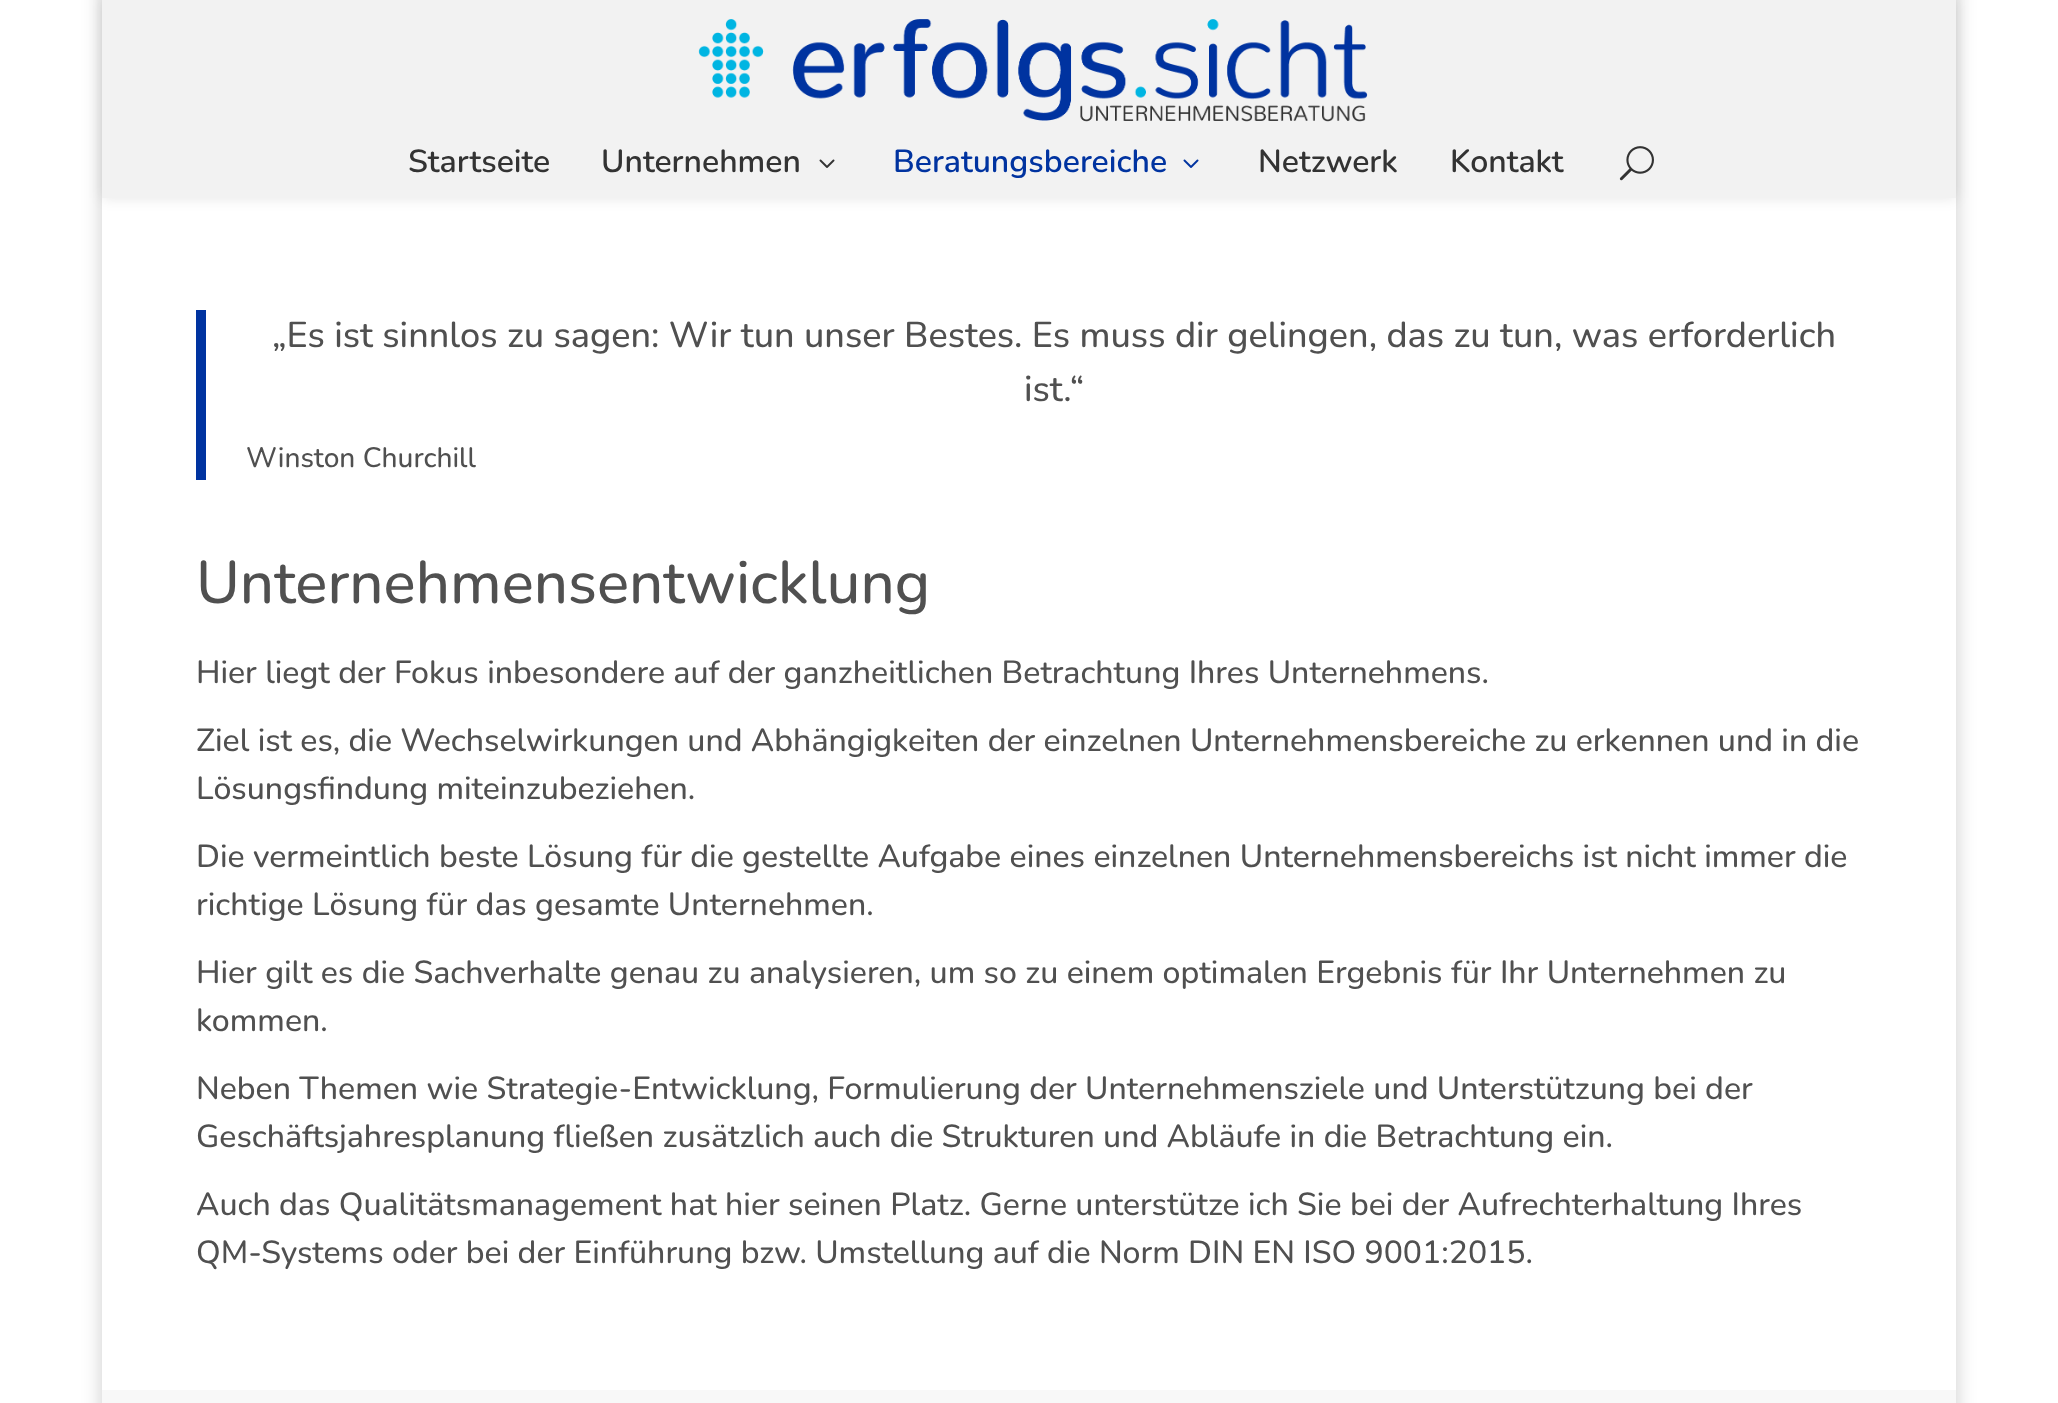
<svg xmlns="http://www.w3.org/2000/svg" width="2058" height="1403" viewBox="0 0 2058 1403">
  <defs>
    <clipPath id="clip1"><path d="M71 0H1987V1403H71ZM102-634H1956V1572H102Z" clip-rule="evenodd"/></clipPath>
    <filter id="blur1" x="-50%" y="-200%" width="200%" height="500%"><feGaussianBlur stdDeviation="10"/></filter>
    <filter id="blur2" x="-50%" y="-200%" width="200%" height="500%"><feGaussianBlur stdDeviation="7"/></filter>
  </defs>
  <rect width="100%" height="100%" fill="#ffffff"/>
  <g clip-path="url(#clip1)">
    <rect x="102" y="-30" width="1854" height="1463" fill="#000000" fill-opacity="0.2" filter="url(#blur1)"/>
  </g>
  <rect x="102" y="0" width="1854" height="198" fill="#000000" fill-opacity="0.1" filter="url(#blur2)"/>
  <rect x="102" y="0" width="1854" height="198" fill="#f2f2f2"/>
  <image x="698" y="19" width="670" height="103" href="img1.png"/>
  <text x="408" y="172" font-family="Nunito" font-size="32" font-weight="600" fill="#333333">Startseite</text>
  <text x="601" y="172" font-family="Nunito" font-size="32" font-weight="600" fill="#333333">Unternehmen</text>
  <image x="819" y="159" width="16" height="9" href="img2.png"/>
  <text x="893" y="172" font-family="Nunito" font-size="32" font-weight="600" fill="#0033a0">Beratungsbereiche</text>
  <image x="1183" y="159" width="16" height="9" href="img3.png"/>
  <text x="1258" y="172" font-family="Nunito" font-size="32" font-weight="600" fill="#333333">Netzwerk</text>
  <text x="1450" y="172" font-family="Nunito" font-size="32" font-weight="600" fill="#333333">Kontakt</text>
  <image x="1619" y="146" width="35" height="35" href="img4.png"/>
  <rect x="196" y="310" width="10" height="170" fill="#0033a0"/>
  <text x="272" y="347" font-family="Nunito" font-size="36" font-weight="500" fill="#505050">„Es ist sinnlos zu sagen: Wir tun unser Bestes. Es muss dir gelingen, das zu tun, was erforderlich</text>
  <text x="1024" y="401" font-family="Nunito" font-size="36" font-weight="500" fill="#505050">ist.“</text>
  <text x="246" y="467" font-family="Nunito" font-size="28" font-weight="500" fill="#505050">Winston Churchill</text>
  <text x="196" y="603" font-family="Nunito" font-size="60" font-weight="500" fill="#505050">Unternehmensentwicklung</text>
  <text x="196" y="683" font-family="Nunito" font-size="32" font-weight="500" fill="#505050">Hier liegt der Fokus inbesondere auf der ganzheitlichen Betrachtung Ihres Unternehmens.</text>
  <text x="196" y="751" font-family="Nunito" font-size="32" font-weight="500" fill="#505050">Ziel ist es, die Wechselwirkungen und Abhängigkeiten der einzelnen Unternehmensbereiche zu erkennen und in die</text>
  <text x="196" y="799" font-family="Nunito" font-size="32" font-weight="500" fill="#505050">Lösungsfindung miteinzubeziehen.</text>
  <text x="196" y="867" font-family="Nunito" font-size="32" font-weight="500" fill="#505050">Die vermeintlich beste Lösung für die gestellte Aufgabe eines einzelnen Unternehmensbereichs ist nicht immer die</text>
  <text x="196" y="915" font-family="Nunito" font-size="32" font-weight="500" fill="#505050">richtige Lösung für das gesamte Unternehmen.</text>
  <text x="196" y="983" font-family="Nunito" font-size="32" font-weight="500" fill="#505050">Hier gilt es die Sachverhalte genau zu analysieren, um so zu einem optimalen Ergebnis für Ihr Unternehmen zu</text>
  <text x="196" y="1031" font-family="Nunito" font-size="32" font-weight="500" fill="#505050">kommen.</text>
  <text x="196" y="1099" font-family="Nunito" font-size="32" font-weight="500" fill="#505050">Neben Themen wie Strategie-Entwicklung, Formulierung der Unternehmensziele und Unterstützung bei der</text>
  <text x="196" y="1147" font-family="Nunito" font-size="32" font-weight="500" fill="#505050">Geschäftsjahresplanung fließen zusätzlich auch die Strukturen und Abläufe in die Betrachtung ein.</text>
  <text x="196" y="1215" font-family="Nunito" font-size="32" font-weight="500" fill="#505050">Auch das Qualitätsmanagement hat hier seinen Platz. Gerne unterstütze ich Sie bei der Aufrechterhaltung Ihres</text>
  <text x="196" y="1263" font-family="Nunito" font-size="32" font-weight="500" fill="#505050">QM-Systems oder bei der Einführung bzw. Umstellung auf die Norm DIN EN ISO 9001:2015.</text>
  <rect x="102" y="1390" width="1854" height="13" fill="#f8f8f8"/>
</svg>
